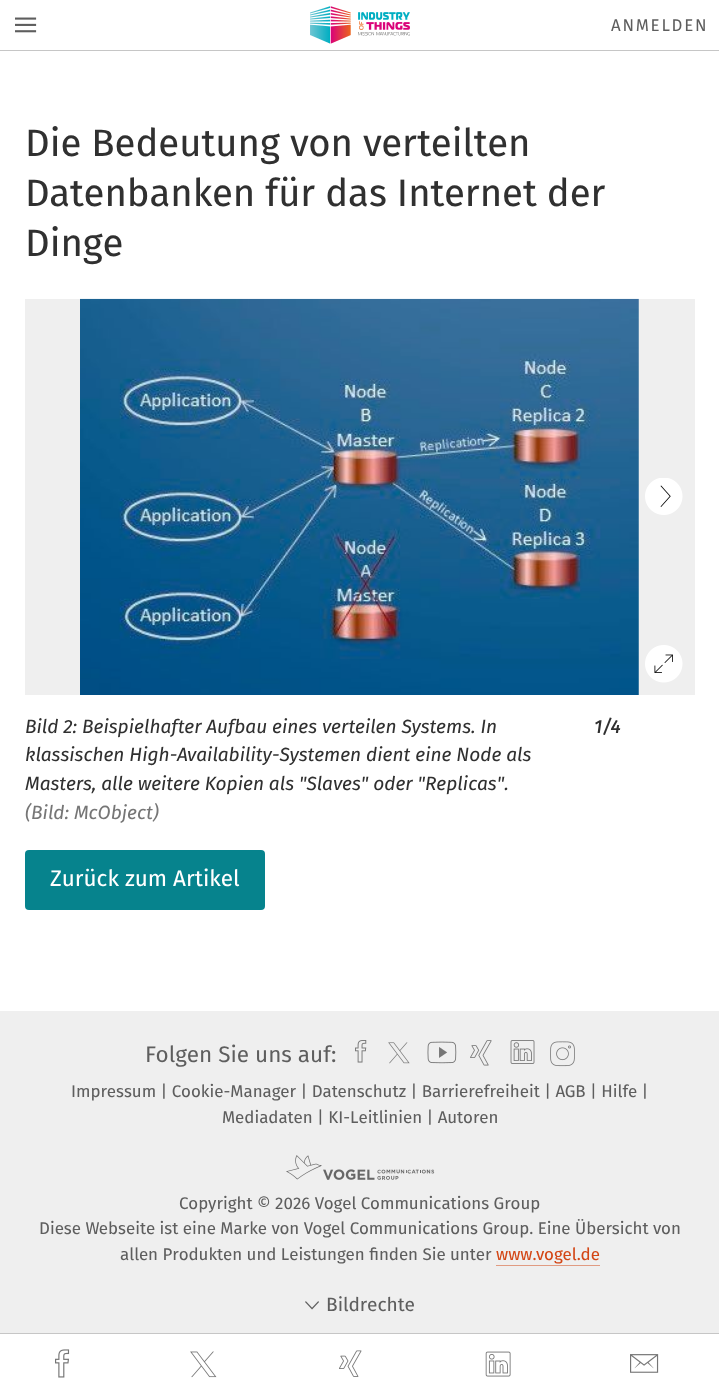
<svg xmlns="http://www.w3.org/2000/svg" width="719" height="1395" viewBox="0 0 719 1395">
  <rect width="100%" height="100%" fill="#ffffff"/>
  <rect x="0" y="50" width="719" height="1" fill="#c6c6c6"/>
  <image x="15" y="17" width="22" height="16" href="img1.png"/>
  <image x="310" y="6" width="100" height="38" href="img2.png"/>
  <text x="611" y="31" font-family="'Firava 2'" font-size="16.9" letter-spacing="1.75" fill="#5e5e5e">ANMELDEN</text>
  <text x="25" y="156" font-family="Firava" font-size="38.25" fill="#303030">Die Bedeutung von verteilten</text>
  <text x="25" y="206" font-family="Firava" font-size="38.25" fill="#303030">Datenbanken für das Internet der</text>
  <text x="25" y="256" font-family="Firava" font-size="38.25" fill="#303030">Dinge</text>
  <rect x="25" y="299" width="670" height="396" fill="#efefef"/>
  <image x="80" y="298" width="559" height="397" href="img3.png"/>
  <image x="645" y="478" width="38" height="37" href="img4.png"/>
  <image x="645" y="645" width="38" height="38" href="img5.png"/>
  <text x="25" y="733" font-family="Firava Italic" font-size="19.1" font-style="italic" fill="#303030">Bild 2: Beispielhafter Aufbau eines verteilen Systems. In</text>
  <text x="25" y="761" font-family="Firava Italic" font-size="19.1" font-style="italic" fill="#303030">klassischen High-Availability-Systemen dient eine Node als</text>
  <text x="25" y="790" font-family="Firava Italic" font-size="19.1" font-style="italic" fill="#303030">Masters, alle weitere Kopien als "Slaves" oder "Replicas".</text>
  <text x="25" y="819" font-family="Firava Italic" font-size="19.1" font-style="italic" fill="#767676">(Bild: McObject)</text>
  <text x="594" y="733" font-family="Firava Italic" font-size="19.1" font-weight="500" font-style="italic" fill="#303030">1/4</text>
  <rect x="25" y="850" width="240" height="60" rx="4" fill="#06838d"/>
  <text x="50" y="886" font-family="Firava" font-size="22.5" fill="#ffffff">Zurück zum Artikel</text>
  <rect x="0" y="1333" width="719" height="1" fill="#c6c6c6"/>
  <image x="55" y="1349" width="15" height="29" href="img6.png"/>
  <image x="190" y="1351" width="27" height="27" href="img7.png"/>
  <image x="339" y="1350" width="23" height="27" href="img8.png"/>
  <image x="485" y="1351" width="26" height="26" href="img9.png"/>
  <image x="630" y="1354" width="29" height="19" href="img10.png"/>
  <rect x="0" y="1011" width="719" height="322" fill="#efefef"/>
  <text x="145" y="1062" font-family="'Firava 2'" font-size="22.5" fill="#5e5e5e">Folgen Sie uns auf:</text>
  <image x="355" y="1040" width="12" height="23" href="img11.png"/>
  <image x="388" y="1042" width="22" height="22" href="img12.png"/>
  <image x="427" y="1041" width="30" height="23" href="img13.png"/>
  <image x="470" y="1040" width="22" height="26" href="img14.png"/>
  <image x="510" y="1040" width="25" height="24" href="img15.png"/>
  <image x="550" y="1041" width="25" height="26" href="img16.png"/>
  <text x="71" y="1097" font-family="Firava" font-size="16.9" fill="#5e5e5e">Impressum | Cookie-Manager | Datenschutz | Barrierefreiheit | AGB | Hilfe |</text>
  <text x="222" y="1123" font-family="Firava" font-size="16.9" fill="#5e5e5e">Mediadaten | KI-Leitlinien | Autoren</text>
  <image x="286" y="1155" width="149" height="25" href="img17.png"/>
  <text x="179" y="1209" font-family="Firava" font-size="16.9" fill="#5e5e5e">Copyright © 2026 Vogel Communications Group</text>
  <text x="39" y="1234" font-family="Firava" font-size="16.9" fill="#5e5e5e">Diese Webseite ist eine Marke von Vogel Communications Group. Eine Übersicht von</text>
  <text x="120" y="1260" font-family="Firava" font-size="16.9" fill="#5e5e5e">allen Produkten und Leistungen finden Sie unter</text>
  <text x="496" y="1260" font-family="Firava" font-size="16.9" fill="#d34615">www.vogel.de</text>
  <rect x="496" y="1265" width="104" height="1" fill="#e19b82"/>
  <image x="305" y="1301" width="14" height="9" href="img18.png"/>
  <text x="326" y="1311" font-family="Firava" font-size="19.1" fill="#5e5e5e">Bildrechte</text>
</svg>
